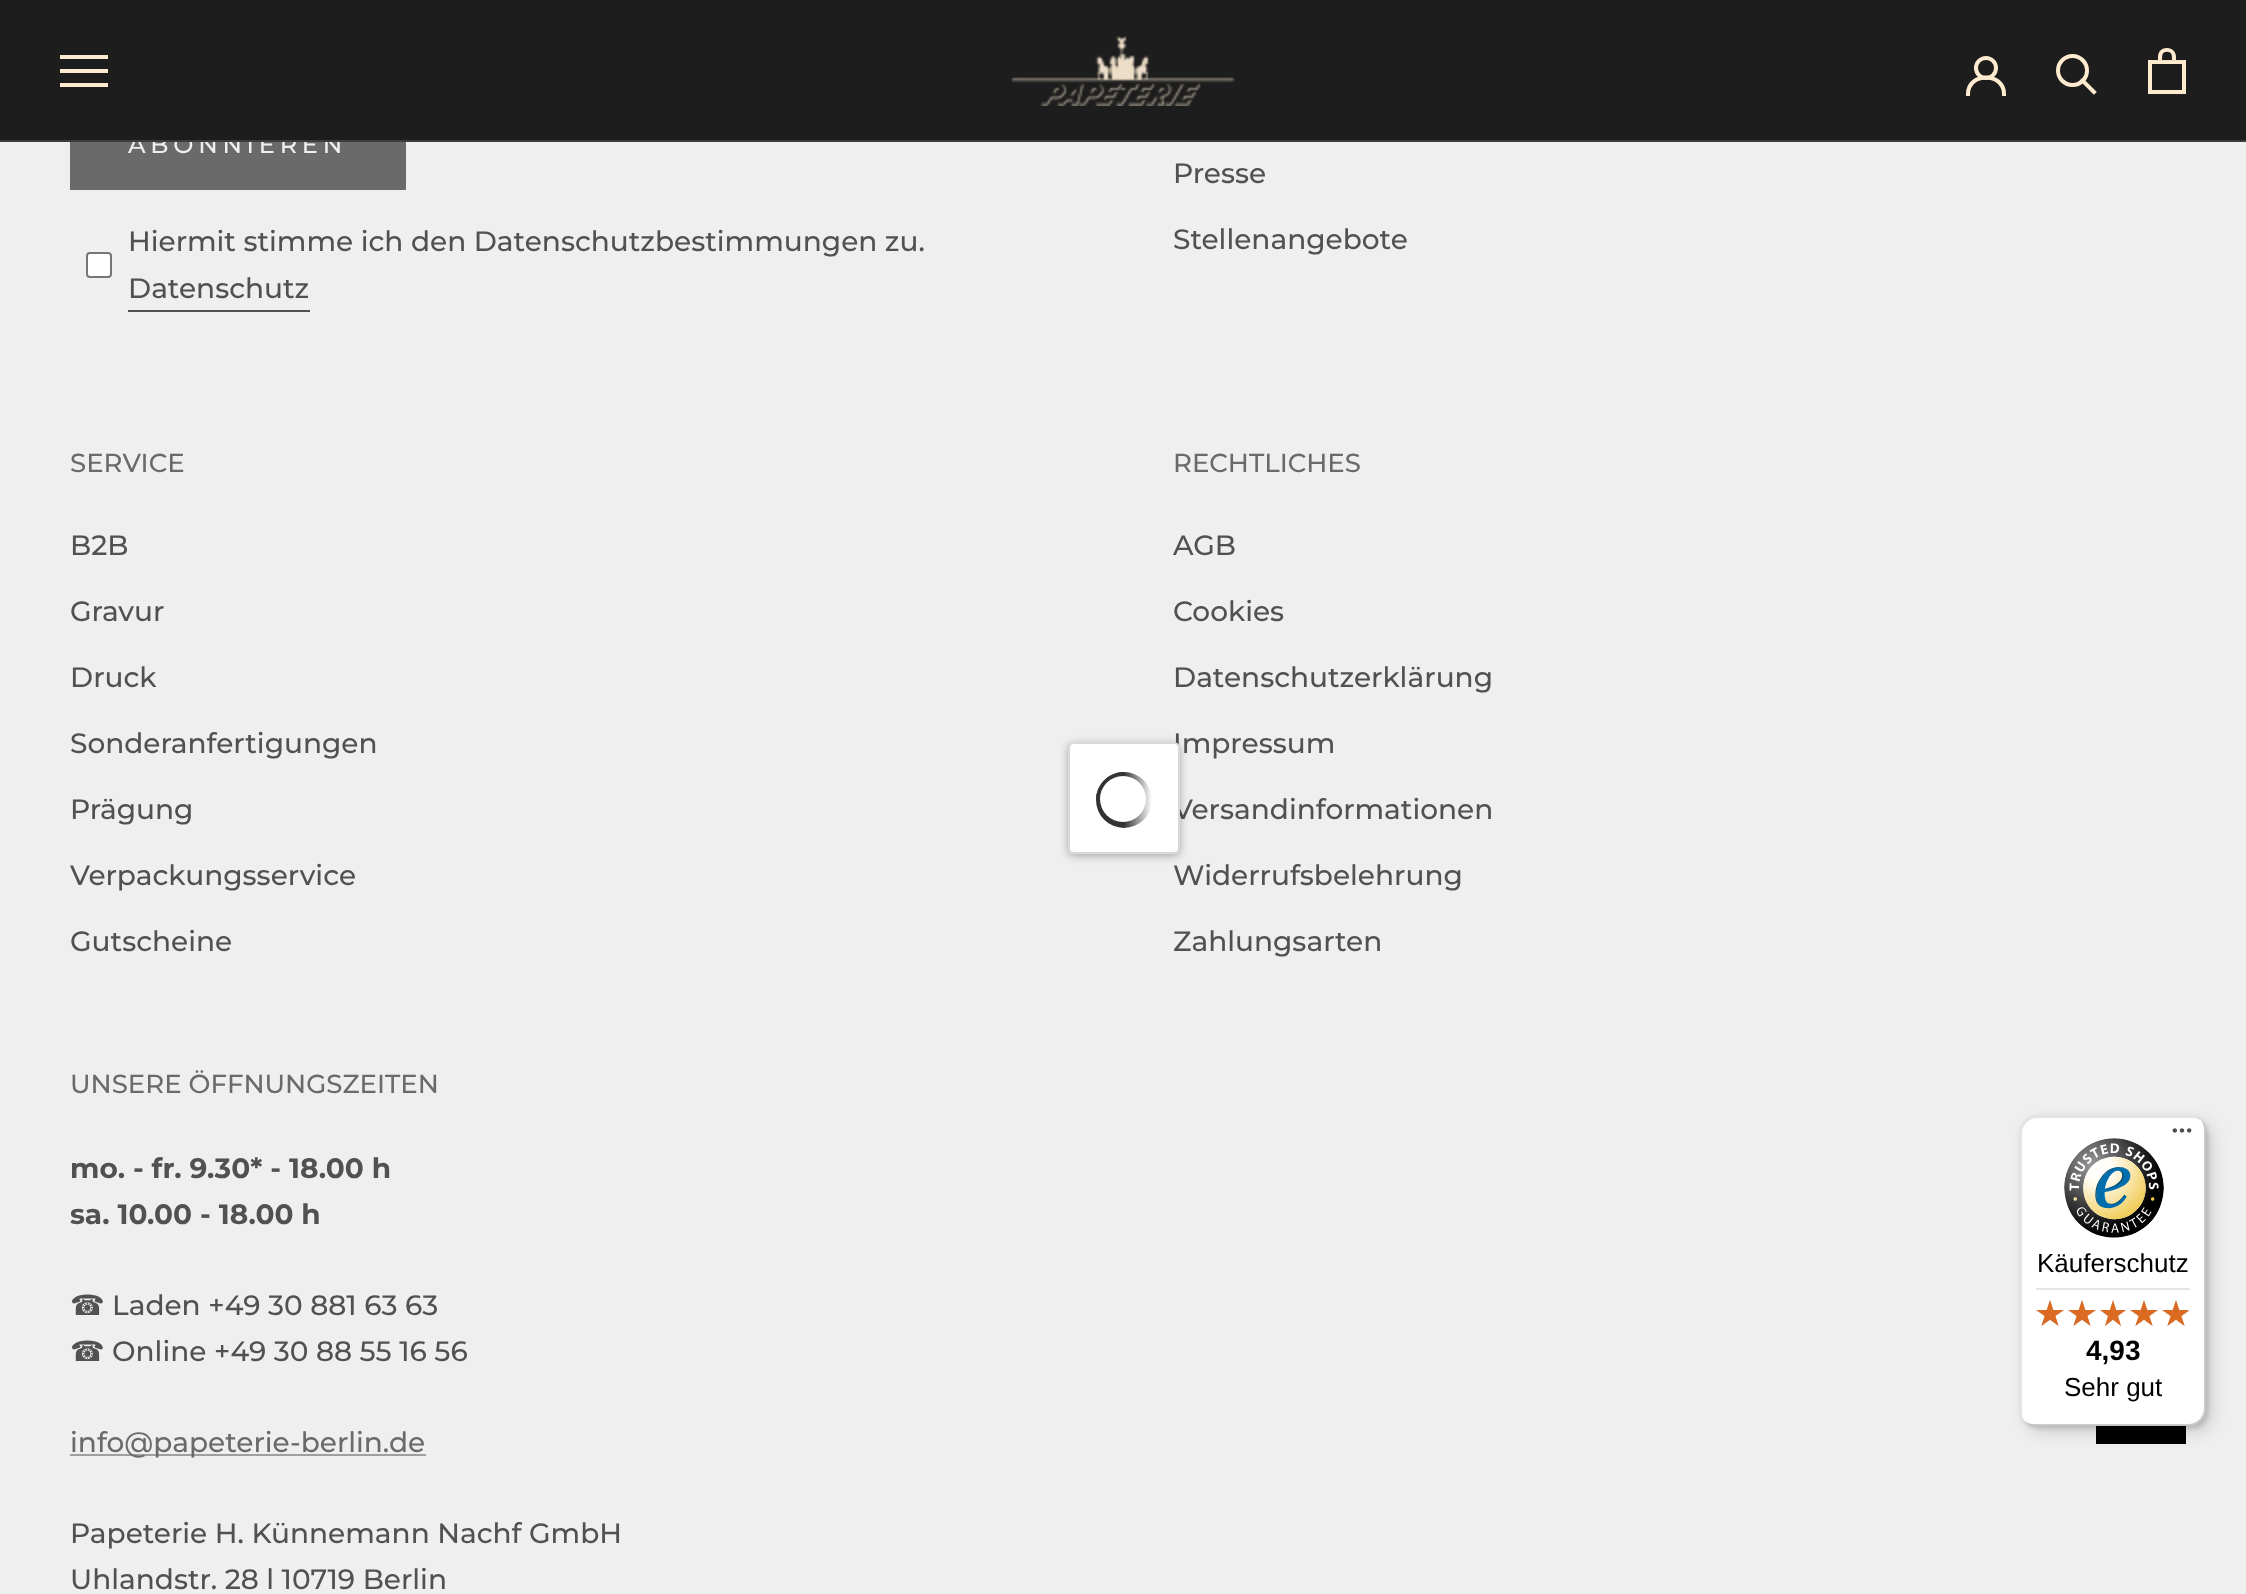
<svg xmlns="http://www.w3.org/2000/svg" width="2246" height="1594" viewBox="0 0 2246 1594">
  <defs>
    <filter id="blur1" x="-50%" y="-200%" width="200%" height="500%"><feGaussianBlur stdDeviation="4"/></filter>
    <linearGradient id="g1" gradientUnits="userSpaceOnUse" x1="1096" y1="800" x2="1152" y2="800"><stop offset="0.5" stop-color="#333333"/><stop offset="1" stop-color="#ffffff"/></linearGradient>
    <filter id="blur2" x="-50%" y="-200%" width="200%" height="500%"><feGaussianBlur stdDeviation="8"/></filter>
    <filter id="blur3" x="-50%" y="-200%" width="200%" height="500%"><feGaussianBlur stdDeviation="2"/></filter>
  </defs>
  <rect width="100%" height="100%" fill="#efefef"/>
  <rect x="71" y="101" width="334" height="88" fill="none" stroke="#6a6a6a" stroke-width="2"/>
  <rect x="72" y="142" width="332" height="46" fill="#6a6a6a"/>
  <text x="128" y="153" font-family="montserrat" font-size="24" font-weight="500" letter-spacing="4.75" fill="#efefef">ABONNIEREN</text>
  <rect x="0" y="0" width="2246" height="140" fill="#1d1d1d"/>
  <rect x="0" y="140" width="2246" height="2" fill="#3f3c38"/>
  <path d="M60 87V83H108V87ZM60 69H108V73H60ZM60 55H108V59H60Z" fill="#ffebd0"/>
  <image x="1011" y="36" width="224" height="70" href="img1.png"/>
  <path d="M1968 94C1968 72 2004 72 2004 94" fill="none" stroke="#ffebd0" stroke-width="4" stroke-linecap="square"/>
  <circle cx="1986" cy="68" r="10" fill="none" stroke="#ffebd0" stroke-width="4"/>
  <path d="M2094 92L2082.5 80.5" fill="none" stroke="#ffebd0" stroke-width="4" stroke-linecap="square"/>
  <circle cx="2072.5" cy="70.5" r="14.5" fill="none" stroke="#ffebd0" stroke-width="4"/>
  <image x="2148" y="48" width="38" height="46" href="img2.png"/>
  <rect x="87" y="253" width="24" height="24" rx="3" fill="#ffffff" stroke="#767676" stroke-width="2"/>
  <text x="128" y="251" font-family="montserrat" font-size="28" font-weight="500" fill="#515150">Hiermit stimme ich den Datenschutzbestimmungen zu.</text>
  <text x="128" y="298" font-family="montserrat" font-size="28" font-weight="500" fill="#515150">Datenschutz</text>
  <rect x="128" y="310" width="182" height="2" fill="#515150"/>
  <text x="1173" y="183" font-family="montserrat" font-size="28" font-weight="500" fill="#515150">Presse</text>
  <text x="1173" y="249" font-family="montserrat" font-size="28" font-weight="500" fill="#515150">Stellenangebote</text>
  <text x="70" y="472" font-family="montserrat" font-size="26" font-weight="500" fill="#6a6a6a">SERVICE</text>
  <text x="70" y="555" font-family="montserrat" font-size="28" font-weight="500" fill="#515150">B2B</text>
  <text x="70" y="621" font-family="montserrat" font-size="28" font-weight="500" fill="#515150">Gravur</text>
  <text x="70" y="687" font-family="montserrat" font-size="28" font-weight="500" fill="#515150">Druck</text>
  <text x="70" y="753" font-family="montserrat" font-size="28" font-weight="500" fill="#515150">Sonderanfertigungen</text>
  <text x="70" y="819" font-family="montserrat" font-size="28" font-weight="500" fill="#515150">Prägung</text>
  <text x="70" y="885" font-family="montserrat" font-size="28" font-weight="500" fill="#515150">Verpackungsservice</text>
  <text x="70" y="951" font-family="montserrat" font-size="28" font-weight="500" fill="#515150">Gutscheine</text>
  <text x="1173" y="472" font-family="montserrat" font-size="26" font-weight="500" fill="#6a6a6a">RECHTLICHES</text>
  <text x="1173" y="555" font-family="montserrat" font-size="28" font-weight="500" fill="#515150">AGB</text>
  <text x="1173" y="621" font-family="montserrat" font-size="28" font-weight="500" fill="#515150">Cookies</text>
  <text x="1173" y="687" font-family="montserrat" font-size="28" font-weight="500" fill="#515150">Datenschutzerklärung</text>
  <text x="1173" y="753" font-family="montserrat" font-size="28" font-weight="500" fill="#515150">Impressum</text>
  <text x="1173" y="819" font-family="montserrat" font-size="28" font-weight="500" fill="#515150">Versandinformationen</text>
  <text x="1173" y="885" font-family="montserrat" font-size="28" font-weight="500" fill="#515150">Widerrufsbelehrung</text>
  <text x="1173" y="951" font-family="montserrat" font-size="28" font-weight="500" fill="#515150">Zahlungsarten</text>
  <text x="70" y="1093" font-family="montserrat" font-size="26" font-weight="500" fill="#6a6a6a">UNSERE ÖFFNUNGSZEITEN</text>
  <text x="70" y="1178" font-family="montserrat" font-size="28" font-weight="bold" fill="#515150">mo. - fr. 9.30* - 18.00 h</text>
  <text x="70" y="1224" font-family="montserrat" font-size="28" font-weight="bold" fill="#515150">sa. 10.00 - 18.00 h</text>
  <text x="70" y="1315" font-family="DejaVu Sans" font-size="28" fill="#515150">☎</text>
  <text x="112" y="1315" font-family="montserrat" font-size="28" font-weight="500" fill="#515150">Laden +49 30 881 63 63</text>
  <text x="70" y="1361" font-family="DejaVu Sans" font-size="28" fill="#515150">☎</text>
  <text x="112" y="1361" font-family="montserrat" font-size="28" font-weight="500" fill="#515150">Online +49 30 88 55 16 56</text>
  <rect x="70" y="1454" width="356" height="2" fill="#9f9f9f"/>
  <text x="70" y="1452" font-family="montserrat" font-size="28" font-weight="500" fill="#6a6a6a">info@papeterie-berlin.de</text>
  <text x="70" y="1543" font-family="montserrat" font-size="28" font-weight="500" fill="#515150">Papeterie H. Künnemann Nachf GmbH</text>
  <text x="70" y="1589" font-family="montserrat" font-size="28" font-weight="500" fill="#515150">Uhlandstr. 28 l 10719 Berlin</text>
  <rect x="1068" y="744" width="112" height="112" rx="6" fill="#000000" fill-opacity="0.3" filter="url(#blur1)"/>
  <rect x="1068" y="742" width="112" height="112" rx="6" fill="#ffffff"/>
  <rect x="1069" y="743" width="110" height="110" rx="5" fill="none" stroke="#000000" stroke-opacity="0.15" stroke-width="2"/>
  <circle cx="1124" cy="800" r="28" fill="url(#g1)"/>
  <path d="M1124 772V800H1096C1096 784.5 1108.5 772 1124 772Z" fill="#333333"/>
  <circle cx="1123" cy="799" r="23" fill="#ffffff"/>
  <rect x="2096" y="1426" width="90" height="18" fill="#000000"/>
  <rect x="2026" y="1122" width="186" height="310" rx="16" fill="#000000" fill-opacity="0.15" filter="url(#blur2)"/>
  <rect x="2022" y="1118" width="186" height="310" rx="16" fill="#000000" fill-opacity="0.15" filter="url(#blur3)"/>
  <rect x="2020" y="1116" width="186" height="310" rx="16" fill="#ffffff"/>
  <path d="M2038 1118H2192C2196 1118 2199 1119 2202 1121C2199 1118 2195 1116 2190 1116H2036C2027 1116 2020 1123 2020 1132V1410C2020 1415 2022 1419 2025 1422C2023 1419 2022 1416 2022 1412V1134C2022 1125 2029 1118 2038 1118Z" fill="#000000" fill-opacity="0.1"/>
  <path d="M2024 1421C2027 1424 2031 1426 2036 1426H2190C2199 1426 2206 1419 2206 1410V1132C2206 1127 2204 1123 2201 1120C2203 1123 2204 1126 2204 1130V1408C2204 1417 2197 1424 2188 1424H2034C2030 1424 2027 1423 2024 1421Z" fill="#000000" fill-opacity="0.2"/>
  <path d="M2025 1421C2028 1424 2032 1426 2036 1426H2190C2199 1426 2206 1419 2206 1410V1132C2206 1128 2204 1124 2201 1121C2204 1124 2205 1127 2205 1131V1409C2205 1418 2198 1425 2189 1425H2035C2031 1425 2028 1424 2025 1421Z" fill="#323232" fill-opacity="0.2"/>
  <path d="M2025 1421C2028 1424 2032 1426 2036 1426H2190C2199 1426 2206 1419 2206 1410V1132C2206 1128 2204 1124 2201 1121C2204 1124 2205 1127 2205 1131V1409C2205 1418 2198 1425 2189 1425H2035C2031 1425 2028 1424 2025 1421Z" fill="#ffffff" fill-opacity="0.3"/>
  <image x="2172" y="1128" width="20" height="5" href="img3.png"/>
  <image x="2064" y="1138" width="100" height="100" href="img4.png"/>
  <text x="2037" y="1272" font-family="Liberation Sans" font-size="26" fill="#000000">Käuferschutz</text>
  <rect x="2036" y="1288" width="154" height="2" fill="#e5e5e5"/>
  <image x="2036" y="1300" width="28" height="26" href="img5.png"/>
  <image x="2068" y="1300" width="28" height="26" href="img5.png"/>
  <image x="2100" y="1300" width="26" height="26" href="img6.png"/>
  <image x="2130" y="1300" width="28" height="26" href="img5.png"/>
  <image x="2162" y="1300" width="28" height="26" href="img5.png"/>
  <image x="2036" y="1300" width="28" height="26" href="img7.png"/>
  <image x="2068" y="1300" width="28" height="26" href="img7.png"/>
  <image x="2100" y="1300" width="26" height="26" href="img8.png"/>
  <image x="2130" y="1300" width="28" height="26" href="img7.png"/>
  <image x="2162" y="1300" width="26" height="26" href="img9.png"/>
  <text x="2086" y="1360" font-family="Liberation Sans" font-size="28" font-weight="bold" fill="#000000">4,93</text>
  <text x="2064" y="1396" font-family="Liberation Sans" font-size="26" fill="#000000">Sehr gut</text>
</svg>
